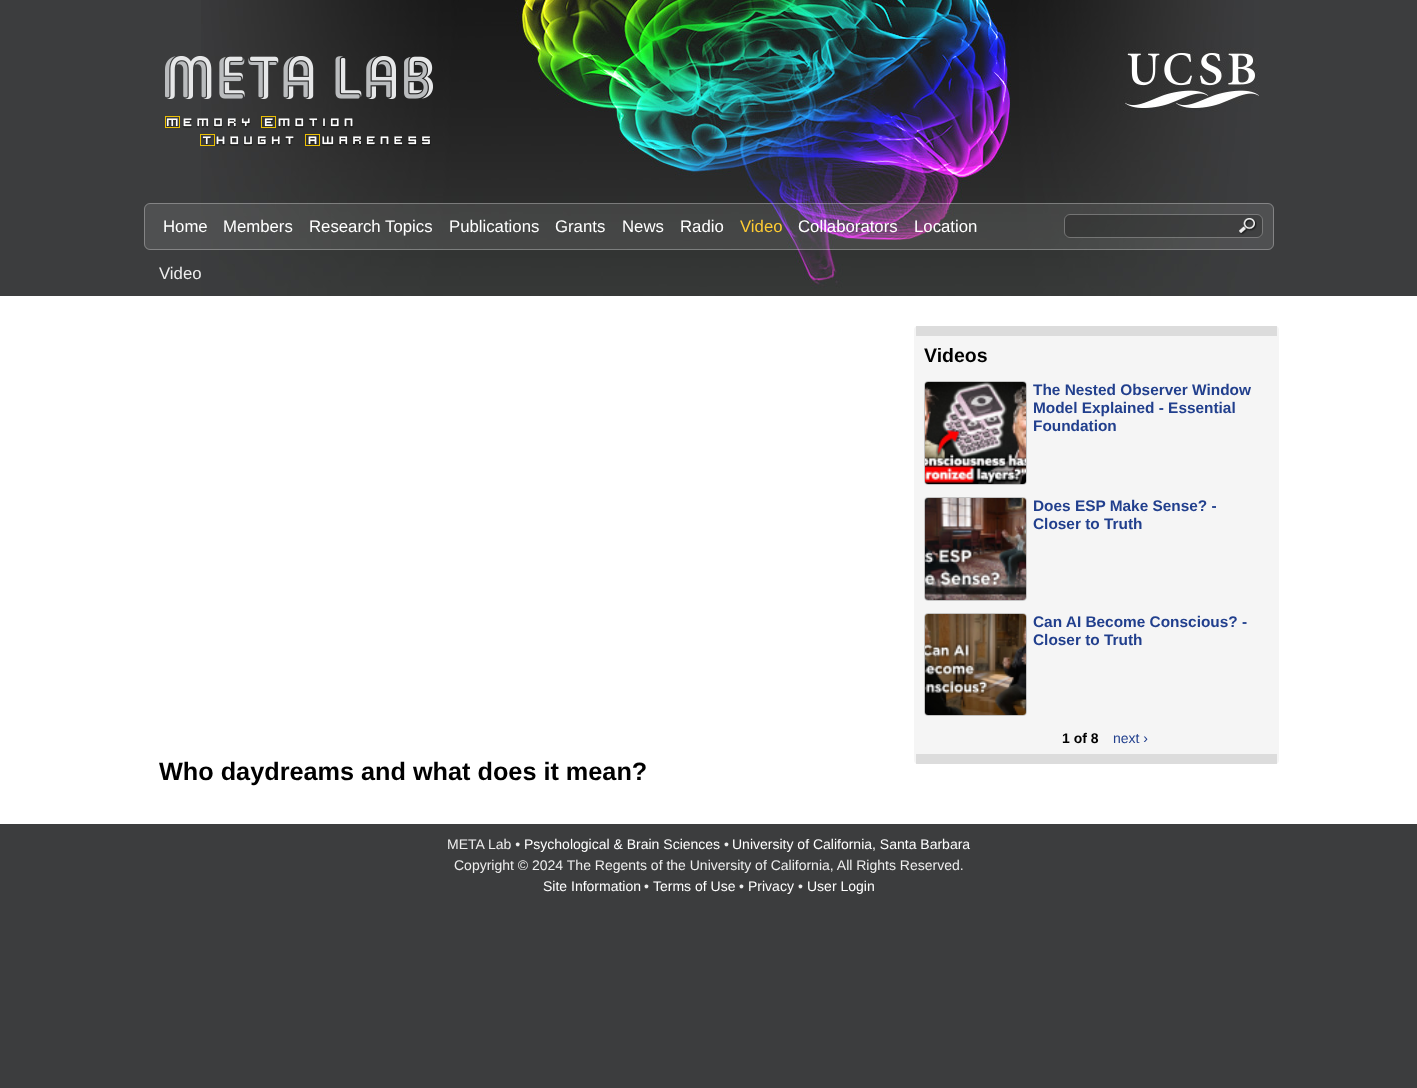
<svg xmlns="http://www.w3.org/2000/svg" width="1417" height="1088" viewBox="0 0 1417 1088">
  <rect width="100%" height="100%" fill="#3c3d3e"/>
  <image x="201" y="0" width="1058" height="296" href="img1.png"/>
  <image x="165" y="56" width="268" height="90" href="img2.png"/>
  <rect x="144" y="203" width="1130" height="47" rx="6" fill="#ffffff" fill-opacity="0.1"/>
  <rect x="144.5" y="203.5" width="1129" height="46" rx="5.5" fill="none" stroke="#ffffff" stroke-opacity="0.3"/>
  <text x="163" y="232" font-family="Liberation Sans" font-size="16.75" fill="#ffffff">Home</text>
  <text x="223" y="232" font-family="Liberation Sans" font-size="16.75" fill="#ffffff">Members</text>
  <text x="309" y="232" font-family="Liberation Sans" font-size="16.75" fill="#ffffff">Research Topics</text>
  <text x="449" y="232" font-family="Liberation Sans" font-size="16.75" fill="#ffffff">Publications</text>
  <text x="555" y="232" font-family="Liberation Sans" font-size="16.75" fill="#ffffff">Grants</text>
  <text x="622" y="232" font-family="Liberation Sans" font-size="16.75" fill="#ffffff">News</text>
  <text x="680" y="232" font-family="Liberation Sans" font-size="16.75" fill="#ffffff">Radio</text>
  <text x="740" y="232" font-family="Liberation Sans" font-size="16.75" fill="#ffcc33">Video</text>
  <text x="798" y="232" font-family="Liberation Sans" font-size="16.75" fill="#ffffff">Collaborators</text>
  <text x="914" y="232" font-family="Liberation Sans" font-size="16.75" fill="#ffffff">Location</text>
  <rect x="1064" y="214" width="199" height="24" rx="6" fill="#000000" fill-opacity="0.2"/>
  <image x="1239" y="218" width="18" height="17" href="img3.png"/>
  <rect x="1064.5" y="214.5" width="198" height="23" rx="5.5" fill="none" stroke="#ffffff" stroke-opacity="0.3"/>
  <text x="159" y="279" font-family="Liberation Sans" font-size="16.75" fill="#eeeeee">Video</text>
  <rect x="0" y="296" width="1417" height="528" fill="#ffffff"/>
  <rect x="914" y="326" width="365" height="438" rx="4" fill="#f5f5f5"/>
  <rect x="916" y="326" width="361" height="10" fill="#000000" fill-opacity="0.1"/>
  <rect x="916" y="754" width="361" height="10" fill="#000000" fill-opacity="0.1"/>
  <text x="924" y="362" font-family="Liberation Sans" font-size="19.5" font-weight="bold" fill="#000000">Videos</text>
  <rect x="924.5" y="381.5" width="102" height="103" rx="3.5" fill="none" stroke="#c4c4c4"/>
  <image x="925" y="382" width="101" height="102" href="img4.png"/>
  <text x="1033" y="395" font-family="Liberation Sans" font-size="15.4" font-weight="bold" fill="#213f8d">The Nested Observer Window</text>
  <text x="1033" y="413" font-family="Liberation Sans" font-size="15.4" font-weight="bold" fill="#213f8d">Model Explained - Essential</text>
  <text x="1033" y="431" font-family="Liberation Sans" font-size="15.4" font-weight="bold" fill="#213f8d">Foundation</text>
  <rect x="924.5" y="497.5" width="102" height="103" rx="3.5" fill="none" stroke="#c4c4c4"/>
  <image x="925" y="498" width="101" height="102" href="img5.png"/>
  <text x="1033" y="511" font-family="Liberation Sans" font-size="15.4" font-weight="bold" fill="#213f8d">Does ESP Make Sense? -</text>
  <text x="1033" y="529" font-family="Liberation Sans" font-size="15.4" font-weight="bold" fill="#213f8d">Closer to Truth</text>
  <rect x="924.5" y="613.5" width="102" height="102" rx="3.5" fill="none" stroke="#c4c4c4"/>
  <image x="925" y="614" width="101" height="101" href="img6.png"/>
  <text x="1033" y="627" font-family="Liberation Sans" font-size="15.4" font-weight="bold" fill="#213f8d">Can AI Become Conscious? -</text>
  <text x="1033" y="645" font-family="Liberation Sans" font-size="15.4" font-weight="bold" fill="#213f8d">Closer to Truth</text>
  <text x="1062" y="743" font-family="Liberation Sans" font-size="14" font-weight="bold" fill="#000000">1 of 8</text>
  <text x="1113" y="743" font-family="Liberation Sans" font-size="14" fill="#213f8d">next ›</text>
  <text x="159" y="780" font-family="Liberation Sans" font-size="25.25" font-weight="bold" fill="#000000">Who daydreams and what does it mean?</text>
  <text x="447" y="849" font-family="Liberation Sans" font-size="14" fill="#eeeeee">META Lab •</text>
  <text x="524" y="849" font-family="Liberation Sans" font-size="14" fill="#ffffff">Psychological &amp; Brain Sciences</text>
  <text x="724" y="849" font-family="Liberation Sans" font-size="14" fill="#eeeeee">•</text>
  <text x="732" y="849" font-family="Liberation Sans" font-size="14" fill="#ffffff">University of California, Santa Barbara</text>
  <text x="454" y="870" font-family="Liberation Sans" font-size="14" fill="#eeeeee">Copyright © 2024 The Regents of the University of California, All Rights Reserved.</text>
  <text x="543" y="891" font-family="Liberation Sans" font-size="14" fill="#ffffff">Site Information</text>
  <text x="644" y="891" font-family="Liberation Sans" font-size="14" fill="#eeeeee">•</text>
  <text x="653" y="891" font-family="Liberation Sans" font-size="14" fill="#ffffff">Terms of Use</text>
  <text x="739" y="891" font-family="Liberation Sans" font-size="14" fill="#eeeeee">•</text>
  <text x="748" y="891" font-family="Liberation Sans" font-size="14" fill="#ffffff">Privacy</text>
  <text x="798" y="891" font-family="Liberation Sans" font-size="14" fill="#eeeeee">•</text>
  <text x="807" y="891" font-family="Liberation Sans" font-size="14" fill="#ffffff">User Login</text>
</svg>
